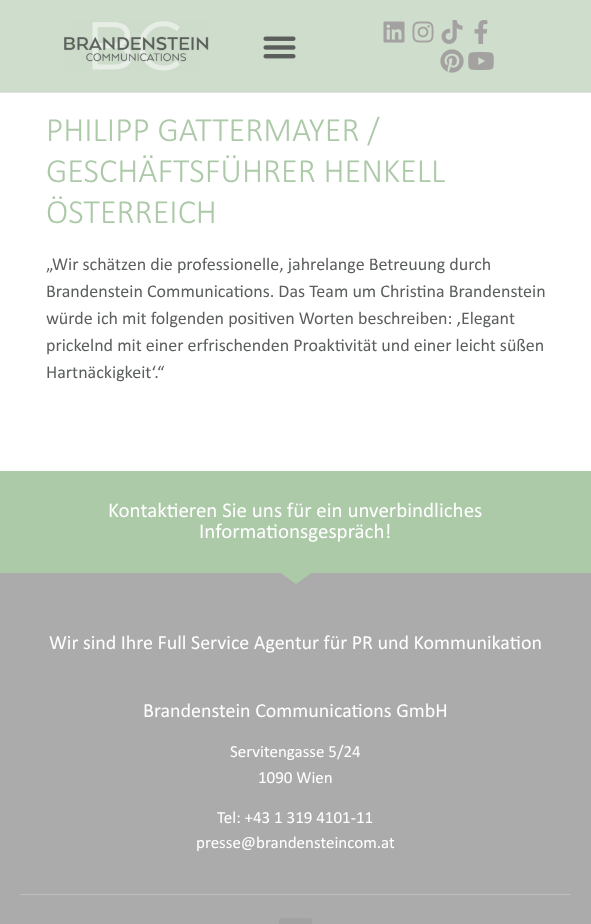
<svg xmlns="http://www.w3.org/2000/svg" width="591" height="924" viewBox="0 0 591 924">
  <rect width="100%" height="100%" fill="#ffffff"/>
  <rect x="0" y="0" width="591" height="92" fill="#ceddcc"/>
  <rect x="0" y="92" width="591" height="1" fill="#e1e1e1"/>
  <image x="64" y="21" width="145" height="50" href="img1.png"/>
  <image x="263" y="36" width="33" height="23" href="img2.png"/>
  <image x="383" y="21" width="22" height="22" href="img3.png"/>
  <image x="412" y="21" width="22" height="22" href="img4.png"/>
  <image x="441" y="20" width="22" height="24" href="img5.png"/>
  <image x="474" y="20" width="14" height="24" href="img6.png"/>
  <image x="440" y="49" width="24" height="24" href="img7.png"/>
  <image x="468" y="52" width="26" height="18" href="img8.png"/>
  <text x="46" y="141" font-family="Calibri" font-size="34" font-weight="300" fill="#acc9a8">PHILIPP GATTERMAYER /</text>
  <text x="46" y="182" font-family="Calibri" font-size="34" font-weight="300" fill="#acc9a8">GESCHÄFTSFÜHRER HENKELL</text>
  <text x="46" y="223" font-family="Calibri" font-size="34" font-weight="300" fill="#acc9a8">ÖSTERREICH</text>
  <text x="46" y="270" font-family="Calibri" font-size="18" fill="#5b5f5c">„</text>
  <text x="52" y="270" font-family="Calibri" font-size="18" fill="#5b5f5c">Wir schätzen die professionelle, jahrelange Betreuung durch</text>
  <text x="46" y="297" font-family="Calibri" font-size="18" fill="#5b5f5c">Brandenstein Communications. Das Team um Christina Brandenstein</text>
  <text x="46" y="324" font-family="Calibri" font-size="18" fill="#5b5f5c">würde ich mit folgenden positiven Worten beschreiben: ‚Elegant</text>
  <text x="46" y="351" font-family="Calibri" font-size="18" fill="#5b5f5c">prickelnd mit einer erfrischenden Proaktivität und einer leicht süßen</text>
  <text x="46" y="378" font-family="Calibri" font-size="18" fill="#5b5f5c">Hartnäckigkeit‘.</text>
  <text x="157" y="378" font-family="Calibri" font-size="18" fill="#5b5f5c">“</text>
  <rect x="0" y="471" width="591" height="102" fill="#acc9a8"/>
  <text x="108" y="517" font-family="Calibri" font-size="21" fill="#ffffff">Kontaktieren Sie uns für ein unverbindliches</text>
  <text x="199" y="538" font-family="Calibri" font-size="21" fill="#ffffff">Informationsgespräch!</text>
  <rect x="0" y="573" width="591" height="351" fill="#ababab"/>
  <path d="M296 584L279 572H313Z" fill="#acc9a8"/>
  <text x="49" y="649" font-family="Calibri" font-size="20" fill="#ffffff">Wir sind Ihre Full Service Agentur für PR und Kommunikation</text>
  <text x="143" y="717" font-family="Calibri" font-size="20" fill="#ffffff">Brandenstein Communications GmbH</text>
  <text x="230" y="757" font-family="Calibri" font-size="17" fill="#ffffff">Servitengasse 5/24</text>
  <text x="258" y="783" font-family="Calibri" font-size="17" fill="#ffffff">1090 Wien</text>
  <text x="217" y="823" font-family="Calibri" font-size="17" fill="#ffffff">Tel: +43 1 319 4101-11</text>
  <text x="196" y="848" font-family="Calibri" font-size="17" fill="#ffffff">presse@brandensteincom.at</text>
  <rect x="20" y="894" width="551" height="1" fill="#bdbdbd"/>
  <rect x="279" y="918" width="33" height="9" rx="3" fill="#a2a2a2"/>
</svg>
